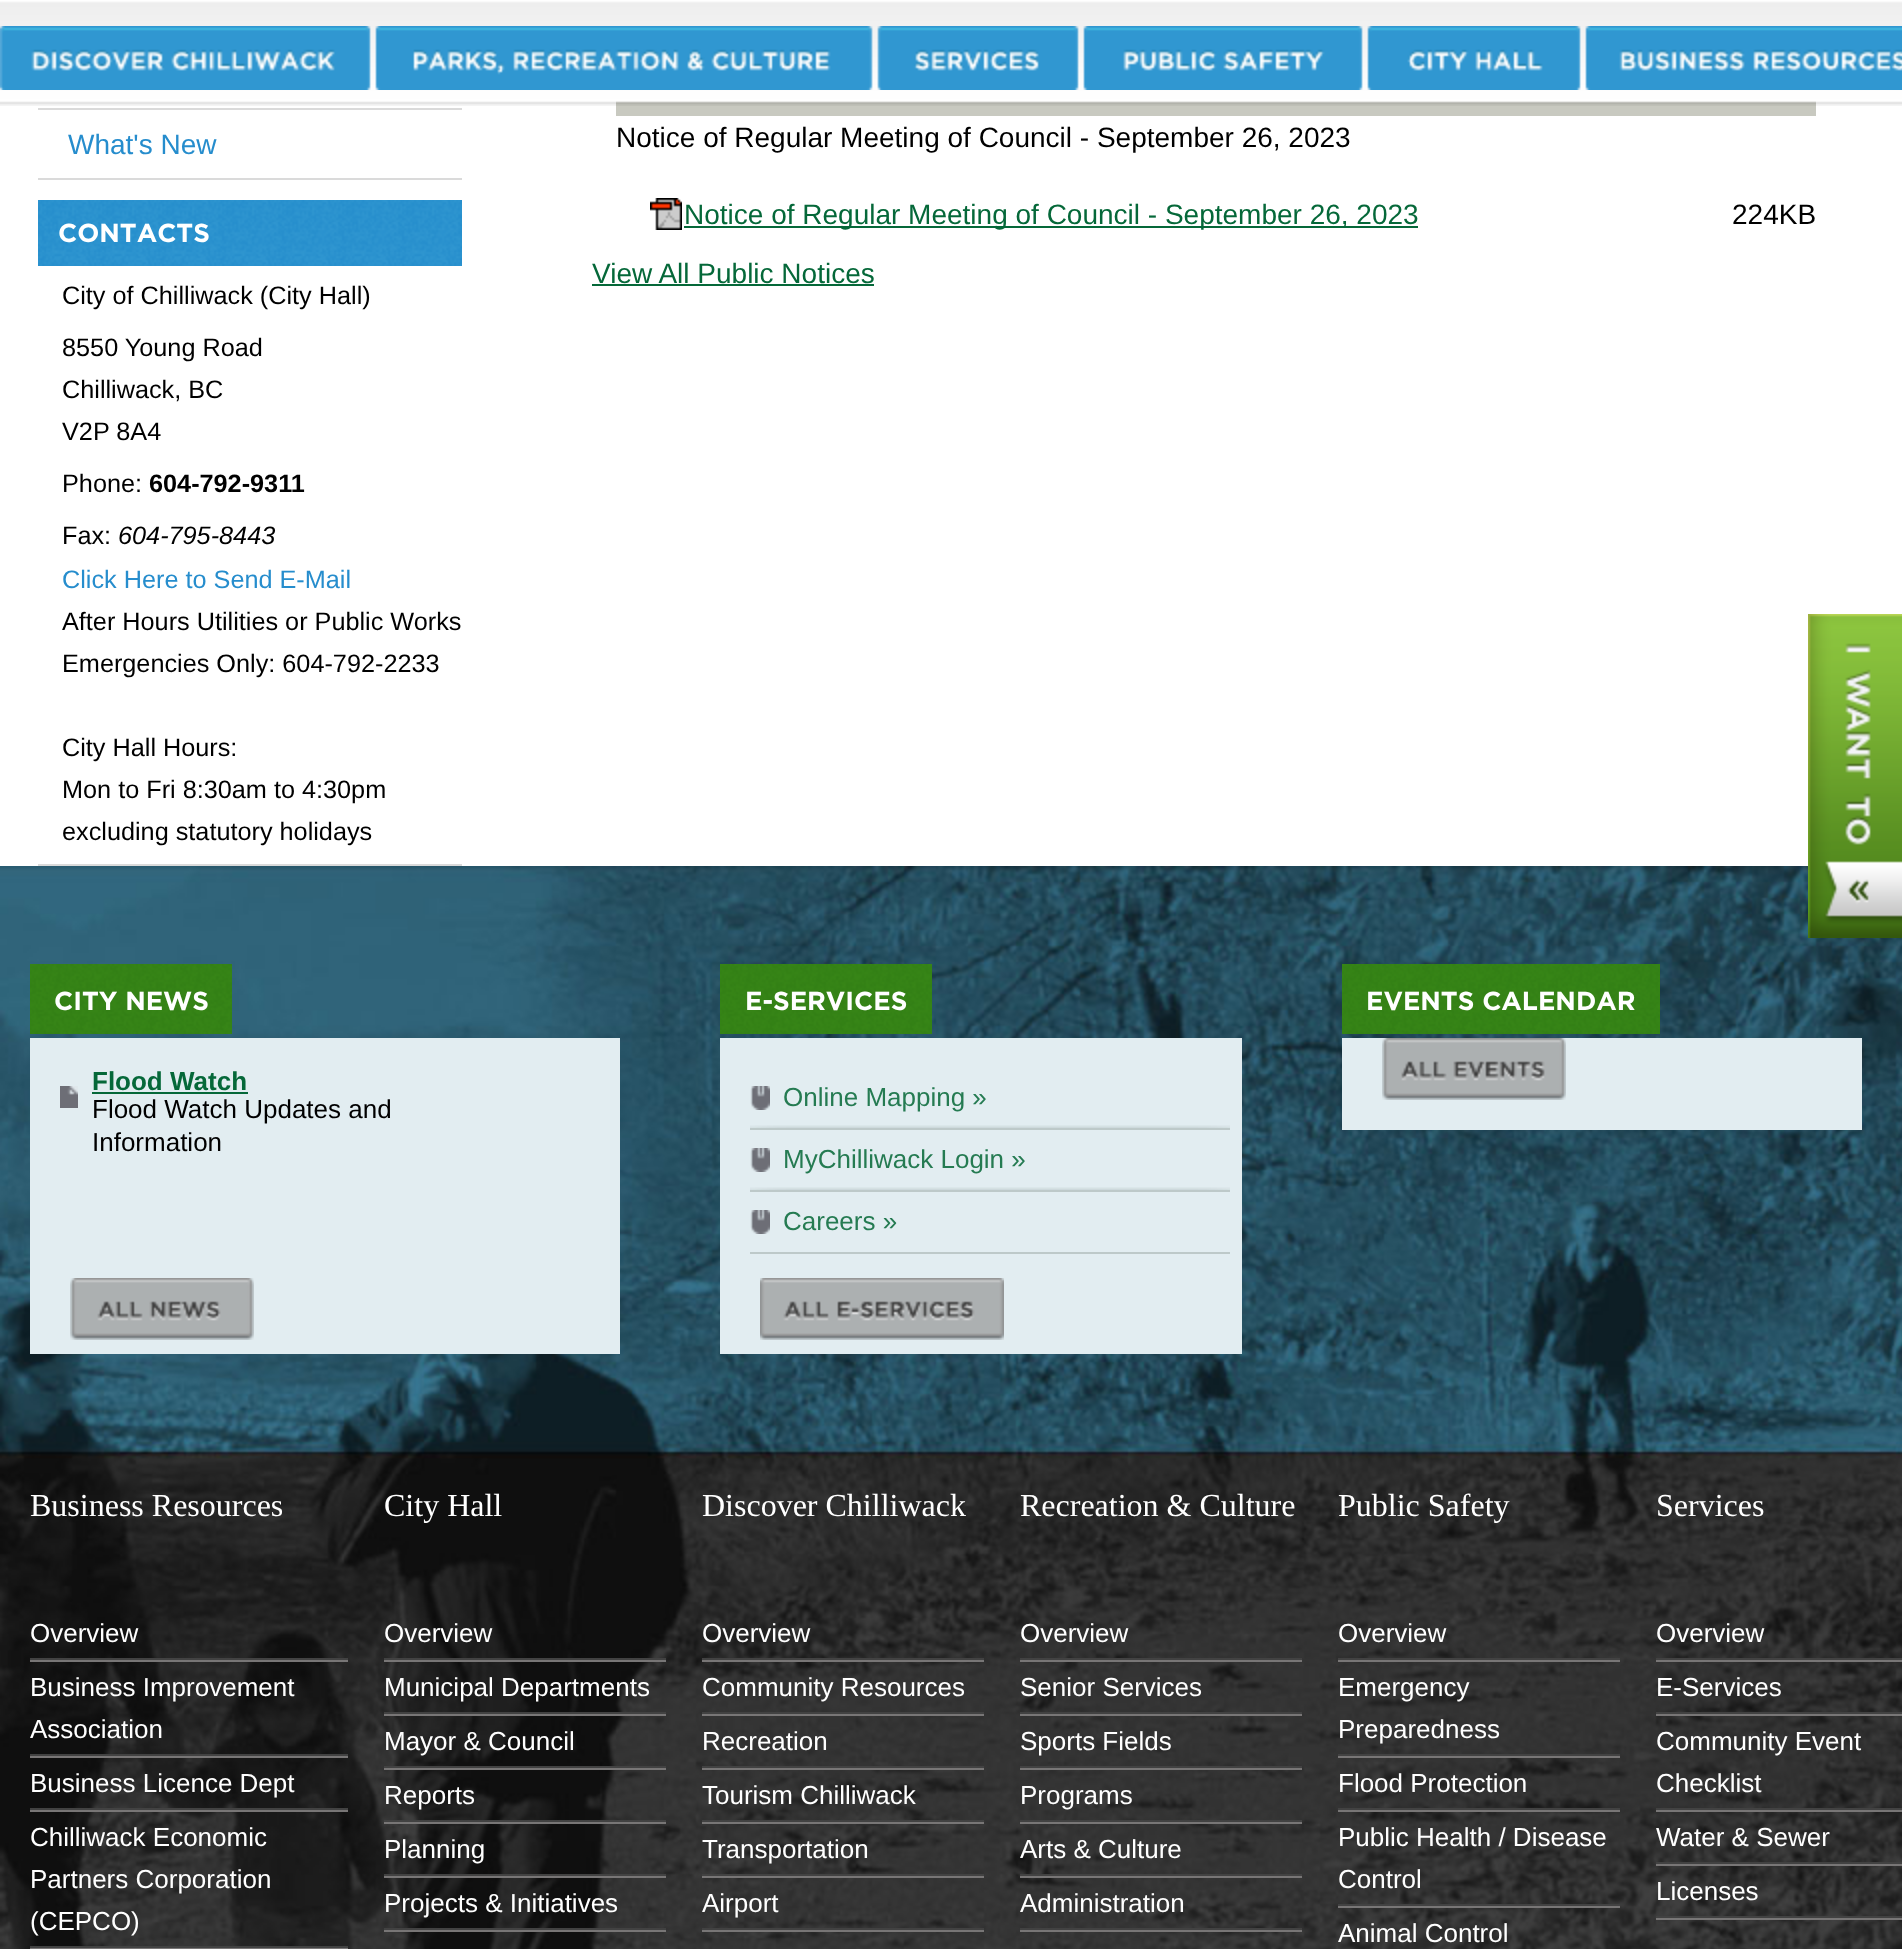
<svg xmlns="http://www.w3.org/2000/svg" width="1902" height="1949" viewBox="0 0 1902 1949">
  <rect width="100%" height="100%" fill="#ffffff"/>
  <rect x="616" y="101" width="1200" height="15" fill="#c8c9c0"/>
  <image x="0" y="0" width="1902" height="106" href="img1.png"/>
  <image x="0" y="26" width="371" height="64" href="img2.png"/>
  <image x="375" y="26" width="498" height="64" href="img3.png"/>
  <image x="877" y="26" width="202" height="64" href="img4.png"/>
  <image x="1083" y="26" width="280" height="64" href="img5.png"/>
  <image x="1367" y="26" width="214" height="64" href="img6.png"/>
  <image x="1585" y="26" width="317" height="64" href="img7.png"/>
  <rect x="38" y="108" width="424" height="2" fill="#dadada"/>
  <rect x="38" y="178" width="424" height="2" fill="#dadada"/>
  <text x="68" y="154" font-family="Liberation Sans" font-size="28" fill="#268dcd">What's New</text>
  <image x="38" y="200" width="424" height="66" href="img8.png"/>
  <text x="58" y="242" font-family="Gotham" font-size="26" font-weight="bold" fill="#ffffff">CONTACTS</text>
  <rect x="38" y="864" width="424" height="2" fill="#dadada"/>
  <text x="62" y="304" font-family="Liberation Sans" font-size="25.25" fill="#000000">City of Chilliwack (City Hall)</text>
  <text x="62" y="356" font-family="Liberation Sans" font-size="25.25" fill="#000000">8550 Young Road</text>
  <text x="62" y="398" font-family="Liberation Sans" font-size="25.25" fill="#000000">Chilliwack, BC</text>
  <text x="62" y="440" font-family="Liberation Sans" font-size="25.25" fill="#000000">V2P 8A4</text>
  <text x="62" y="492" font-family="Liberation Sans" font-size="25.25" fill="#000000">Phone:</text>
  <text x="149" y="492" font-family="Liberation Sans" font-size="25.25" font-weight="bold" fill="#000000">604-792-9311</text>
  <text x="62" y="544" font-family="Liberation Sans" font-size="25.25" fill="#000000">Fax:</text>
  <text x="118" y="544" font-family="Liberation Sans" font-size="25.25" font-style="italic" fill="#000000">604-795-8443</text>
  <text x="62" y="588" font-family="Liberation Sans" font-size="25.25" fill="#268dcd">Click Here to Send E-Mail</text>
  <text x="62" y="630" font-family="Liberation Sans" font-size="25.25" fill="#000000">After Hours Utilities or Public Works</text>
  <text x="62" y="672" font-family="Liberation Sans" font-size="25.25" fill="#000000">Emergencies Only: 604-792-2233</text>
  <text x="62" y="756" font-family="Liberation Sans" font-size="25.25" fill="#000000">City Hall Hours:</text>
  <text x="62" y="798" font-family="Liberation Sans" font-size="25.25" fill="#000000">Mon to Fri 8:30am to 4:30pm</text>
  <text x="62" y="840" font-family="Liberation Sans" font-size="25.25" fill="#000000">excluding statutory holidays</text>
  <text x="616" y="147" font-family="Liberation Sans" font-size="28" fill="#000000">Notice of Regular Meeting of Council - September 26, 2023</text>
  <image x="650" y="198" width="32" height="32" href="img9.png"/>
  <rect x="684" y="226" width="734" height="2" fill="#056839"/>
  <text x="684" y="224" font-family="Liberation Sans" font-size="28" fill="#056839">Notice of Regular Meeting of Council - September 26, 2023</text>
  <text x="1732" y="224" font-family="Liberation Sans" font-size="28" fill="#000000">224KB</text>
  <text x="592" y="283" font-family="Liberation Sans" font-size="28" fill="#056839">View All Public Notices</text>
  <rect x="592" y="284" width="282" height="2" fill="#056839"/>
  <image x="0" y="866" width="1902" height="1083" href="img11.png"/>
  <image x="1808" y="614" width="94" height="324" href="img10.png"/>
  <image x="30" y="964" width="202" height="70" href="img12.png"/>
  <text x="54" y="1010" font-family="Gotham" font-size="26" font-weight="bold" fill="#ffffff">CITY NEWS</text>
  <rect x="30" y="1038" width="590" height="316" fill="#e2edf1"/>
  <image x="60" y="1086" width="18" height="22" href="img13.png"/>
  <text x="92" y="1090" font-family="Liberation Sans" font-size="26" font-weight="bold" fill="#056839">Flood Watch</text>
  <rect x="92" y="1092" width="156" height="2" fill="#056839"/>
  <text x="92" y="1118" font-family="Liberation Sans" font-size="26" fill="#000000">Flood Watch Updates and</text>
  <text x="92" y="1151" font-family="Liberation Sans" font-size="26" fill="#000000">Information</text>
  <image x="70" y="1278" width="184" height="62" href="img14.png"/>
  <image x="720" y="964" width="212" height="70" href="img15.png"/>
  <text x="745" y="1010" font-family="Gotham" font-size="26" font-weight="bold" fill="#ffffff">E-SERVICES</text>
  <rect x="720" y="1038" width="522" height="316" fill="#e2edf1"/>
  <image x="750" y="1125" width="480" height="3" href="img16.png"/>
  <image x="750" y="1086" width="20" height="24" href="img17.png"/>
  <rect x="750" y="1128" width="480" height="2" fill="#bdc9c9"/>
  <text x="783" y="1106" font-family="Liberation Sans" font-size="26" fill="#257b52">Online Mapping »</text>
  <image x="750" y="1187" width="480" height="3" href="img16.png"/>
  <image x="750" y="1148" width="20" height="24" href="img17.png"/>
  <rect x="750" y="1190" width="480" height="2" fill="#bdc9c9"/>
  <text x="783" y="1168" font-family="Liberation Sans" font-size="26" fill="#257b52">MyChilliwack Login »</text>
  <image x="750" y="1210" width="20" height="24" href="img17.png"/>
  <rect x="750" y="1252" width="480" height="2" fill="#bdc9c9"/>
  <text x="783" y="1230" font-family="Liberation Sans" font-size="26" fill="#257b52">Careers »</text>
  <image x="760" y="1278" width="244" height="62" href="img18.png"/>
  <image x="1342" y="964" width="318" height="70" href="img19.png"/>
  <text x="1366" y="1010" font-family="Gotham" font-size="26" font-weight="bold" fill="#ffffff">EVENTS CALENDAR</text>
  <rect x="1342" y="1038" width="520" height="92" fill="#e2edf1"/>
  <image x="1382" y="1038" width="184" height="62" href="img20.png"/>
  <text x="30" y="1516" font-family="Liberation Serif" font-size="32" fill="#ffffff">Business Resources</text>
  <rect x="30" y="1658" width="318" height="2" fill="#424242"/>
  <text x="30" y="1642" font-family="Liberation Sans" font-size="26" fill="#ffffff">Overview</text>
  <rect x="30" y="1660" width="318" height="2" fill="#787676"/>
  <rect x="30" y="1754" width="318" height="2" fill="#424242"/>
  <text x="30" y="1696" font-family="Liberation Sans" font-size="26" fill="#ffffff">Business Improvement</text>
  <text x="30" y="1738" font-family="Liberation Sans" font-size="26" fill="#ffffff">Association</text>
  <rect x="30" y="1756" width="318" height="2" fill="#787676"/>
  <rect x="30" y="1808" width="318" height="2" fill="#424242"/>
  <text x="30" y="1792" font-family="Liberation Sans" font-size="26" fill="#ffffff">Business Licence Dept</text>
  <rect x="30" y="1810" width="318" height="2" fill="#787676"/>
  <rect x="30" y="1946" width="318" height="2" fill="#424242"/>
  <text x="30" y="1846" font-family="Liberation Sans" font-size="26" fill="#ffffff">Chilliwack Economic</text>
  <text x="30" y="1888" font-family="Liberation Sans" font-size="26" fill="#ffffff">Partners Corporation</text>
  <text x="30" y="1930" font-family="Liberation Sans" font-size="26" fill="#ffffff">(CEPCO)</text>
  <rect x="30" y="1948" width="318" height="1" fill="#787676"/>
  <text x="384" y="1516" font-family="Liberation Serif" font-size="32" fill="#ffffff">City Hall</text>
  <rect x="384" y="1658" width="282" height="2" fill="#424242"/>
  <text x="384" y="1642" font-family="Liberation Sans" font-size="26" fill="#ffffff">Overview</text>
  <rect x="384" y="1660" width="282" height="2" fill="#787676"/>
  <rect x="384" y="1712" width="282" height="2" fill="#424242"/>
  <text x="384" y="1696" font-family="Liberation Sans" font-size="26" fill="#ffffff">Municipal Departments</text>
  <rect x="384" y="1714" width="282" height="2" fill="#787676"/>
  <rect x="384" y="1766" width="282" height="2" fill="#424242"/>
  <text x="384" y="1750" font-family="Liberation Sans" font-size="26" fill="#ffffff">Mayor &amp; Council</text>
  <rect x="384" y="1768" width="282" height="2" fill="#787676"/>
  <rect x="384" y="1820" width="282" height="2" fill="#424242"/>
  <text x="384" y="1804" font-family="Liberation Sans" font-size="26" fill="#ffffff">Reports</text>
  <rect x="384" y="1822" width="282" height="2" fill="#787676"/>
  <rect x="384" y="1874" width="282" height="2" fill="#424242"/>
  <text x="384" y="1858" font-family="Liberation Sans" font-size="26" fill="#ffffff">Planning</text>
  <rect x="384" y="1876" width="282" height="2" fill="#787676"/>
  <rect x="384" y="1928" width="282" height="2" fill="#424242"/>
  <text x="384" y="1912" font-family="Liberation Sans" font-size="26" fill="#ffffff">Projects &amp; Initiatives</text>
  <rect x="384" y="1930" width="282" height="2" fill="#787676"/>
  <text x="702" y="1516" font-family="Liberation Serif" font-size="32" fill="#ffffff">Discover Chilliwack</text>
  <rect x="702" y="1658" width="282" height="2" fill="#424242"/>
  <text x="702" y="1642" font-family="Liberation Sans" font-size="26" fill="#ffffff">Overview</text>
  <rect x="702" y="1660" width="282" height="2" fill="#787676"/>
  <rect x="702" y="1712" width="282" height="2" fill="#424242"/>
  <text x="702" y="1696" font-family="Liberation Sans" font-size="26" fill="#ffffff">Community Resources</text>
  <rect x="702" y="1714" width="282" height="2" fill="#787676"/>
  <rect x="702" y="1766" width="282" height="2" fill="#424242"/>
  <text x="702" y="1750" font-family="Liberation Sans" font-size="26" fill="#ffffff">Recreation</text>
  <rect x="702" y="1768" width="282" height="2" fill="#787676"/>
  <rect x="702" y="1820" width="282" height="2" fill="#424242"/>
  <text x="702" y="1804" font-family="Liberation Sans" font-size="26" fill="#ffffff">Tourism Chilliwack</text>
  <rect x="702" y="1822" width="282" height="2" fill="#787676"/>
  <rect x="702" y="1874" width="282" height="2" fill="#424242"/>
  <text x="702" y="1858" font-family="Liberation Sans" font-size="26" fill="#ffffff">Transportation</text>
  <rect x="702" y="1876" width="282" height="2" fill="#787676"/>
  <rect x="702" y="1928" width="282" height="2" fill="#424242"/>
  <text x="702" y="1912" font-family="Liberation Sans" font-size="26" fill="#ffffff">Airport</text>
  <rect x="702" y="1930" width="282" height="2" fill="#787676"/>
  <text x="1020" y="1516" font-family="Liberation Serif" font-size="32" fill="#ffffff">Recreation &amp; Culture</text>
  <rect x="1020" y="1658" width="282" height="2" fill="#424242"/>
  <text x="1020" y="1642" font-family="Liberation Sans" font-size="26" fill="#ffffff">Overview</text>
  <rect x="1020" y="1660" width="282" height="2" fill="#787676"/>
  <rect x="1020" y="1712" width="282" height="2" fill="#424242"/>
  <text x="1020" y="1696" font-family="Liberation Sans" font-size="26" fill="#ffffff">Senior Services</text>
  <rect x="1020" y="1714" width="282" height="2" fill="#787676"/>
  <rect x="1020" y="1766" width="282" height="2" fill="#424242"/>
  <text x="1020" y="1750" font-family="Liberation Sans" font-size="26" fill="#ffffff">Sports Fields</text>
  <rect x="1020" y="1768" width="282" height="2" fill="#787676"/>
  <rect x="1020" y="1820" width="282" height="2" fill="#424242"/>
  <text x="1020" y="1804" font-family="Liberation Sans" font-size="26" fill="#ffffff">Programs</text>
  <rect x="1020" y="1822" width="282" height="2" fill="#787676"/>
  <rect x="1020" y="1874" width="282" height="2" fill="#424242"/>
  <text x="1020" y="1858" font-family="Liberation Sans" font-size="26" fill="#ffffff">Arts &amp; Culture</text>
  <rect x="1020" y="1876" width="282" height="2" fill="#787676"/>
  <rect x="1020" y="1928" width="282" height="2" fill="#424242"/>
  <text x="1020" y="1912" font-family="Liberation Sans" font-size="26" fill="#ffffff">Administration</text>
  <rect x="1020" y="1930" width="282" height="2" fill="#787676"/>
  <text x="1338" y="1516" font-family="Liberation Serif" font-size="32" fill="#ffffff">Public Safety</text>
  <rect x="1338" y="1658" width="282" height="2" fill="#424242"/>
  <text x="1338" y="1642" font-family="Liberation Sans" font-size="26" fill="#ffffff">Overview</text>
  <rect x="1338" y="1660" width="282" height="2" fill="#787676"/>
  <rect x="1338" y="1754" width="282" height="2" fill="#424242"/>
  <text x="1338" y="1696" font-family="Liberation Sans" font-size="26" fill="#ffffff">Emergency</text>
  <text x="1338" y="1738" font-family="Liberation Sans" font-size="26" fill="#ffffff">Preparedness</text>
  <rect x="1338" y="1756" width="282" height="2" fill="#787676"/>
  <rect x="1338" y="1808" width="282" height="2" fill="#424242"/>
  <text x="1338" y="1792" font-family="Liberation Sans" font-size="26" fill="#ffffff">Flood Protection</text>
  <rect x="1338" y="1810" width="282" height="2" fill="#787676"/>
  <rect x="1338" y="1904" width="282" height="2" fill="#424242"/>
  <text x="1338" y="1846" font-family="Liberation Sans" font-size="26" fill="#ffffff">Public Health / Disease</text>
  <text x="1338" y="1888" font-family="Liberation Sans" font-size="26" fill="#ffffff">Control</text>
  <rect x="1338" y="1906" width="282" height="2" fill="#787676"/>
  <text x="1338" y="1942" font-family="Liberation Sans" font-size="26" fill="#ffffff">Animal Control</text>
  <text x="1656" y="1516" font-family="Liberation Serif" font-size="32" fill="#ffffff">Services</text>
  <rect x="1656" y="1658" width="246" height="2" fill="#424242"/>
  <text x="1656" y="1642" font-family="Liberation Sans" font-size="26" fill="#ffffff">Overview</text>
  <rect x="1656" y="1660" width="246" height="2" fill="#787676"/>
  <rect x="1656" y="1712" width="246" height="2" fill="#424242"/>
  <text x="1656" y="1696" font-family="Liberation Sans" font-size="26" fill="#ffffff">E-Services</text>
  <rect x="1656" y="1714" width="246" height="2" fill="#787676"/>
  <rect x="1656" y="1808" width="246" height="2" fill="#424242"/>
  <text x="1656" y="1750" font-family="Liberation Sans" font-size="26" fill="#ffffff">Community Event</text>
  <text x="1656" y="1792" font-family="Liberation Sans" font-size="26" fill="#ffffff">Checklist</text>
  <rect x="1656" y="1810" width="246" height="2" fill="#787676"/>
  <rect x="1656" y="1862" width="246" height="2" fill="#424242"/>
  <text x="1656" y="1846" font-family="Liberation Sans" font-size="26" fill="#ffffff">Water &amp; Sewer</text>
  <rect x="1656" y="1864" width="246" height="2" fill="#787676"/>
  <rect x="1656" y="1916" width="246" height="2" fill="#424242"/>
  <text x="1656" y="1900" font-family="Liberation Sans" font-size="26" fill="#ffffff">Licenses</text>
  <rect x="1656" y="1918" width="246" height="2" fill="#787676"/>
</svg>
